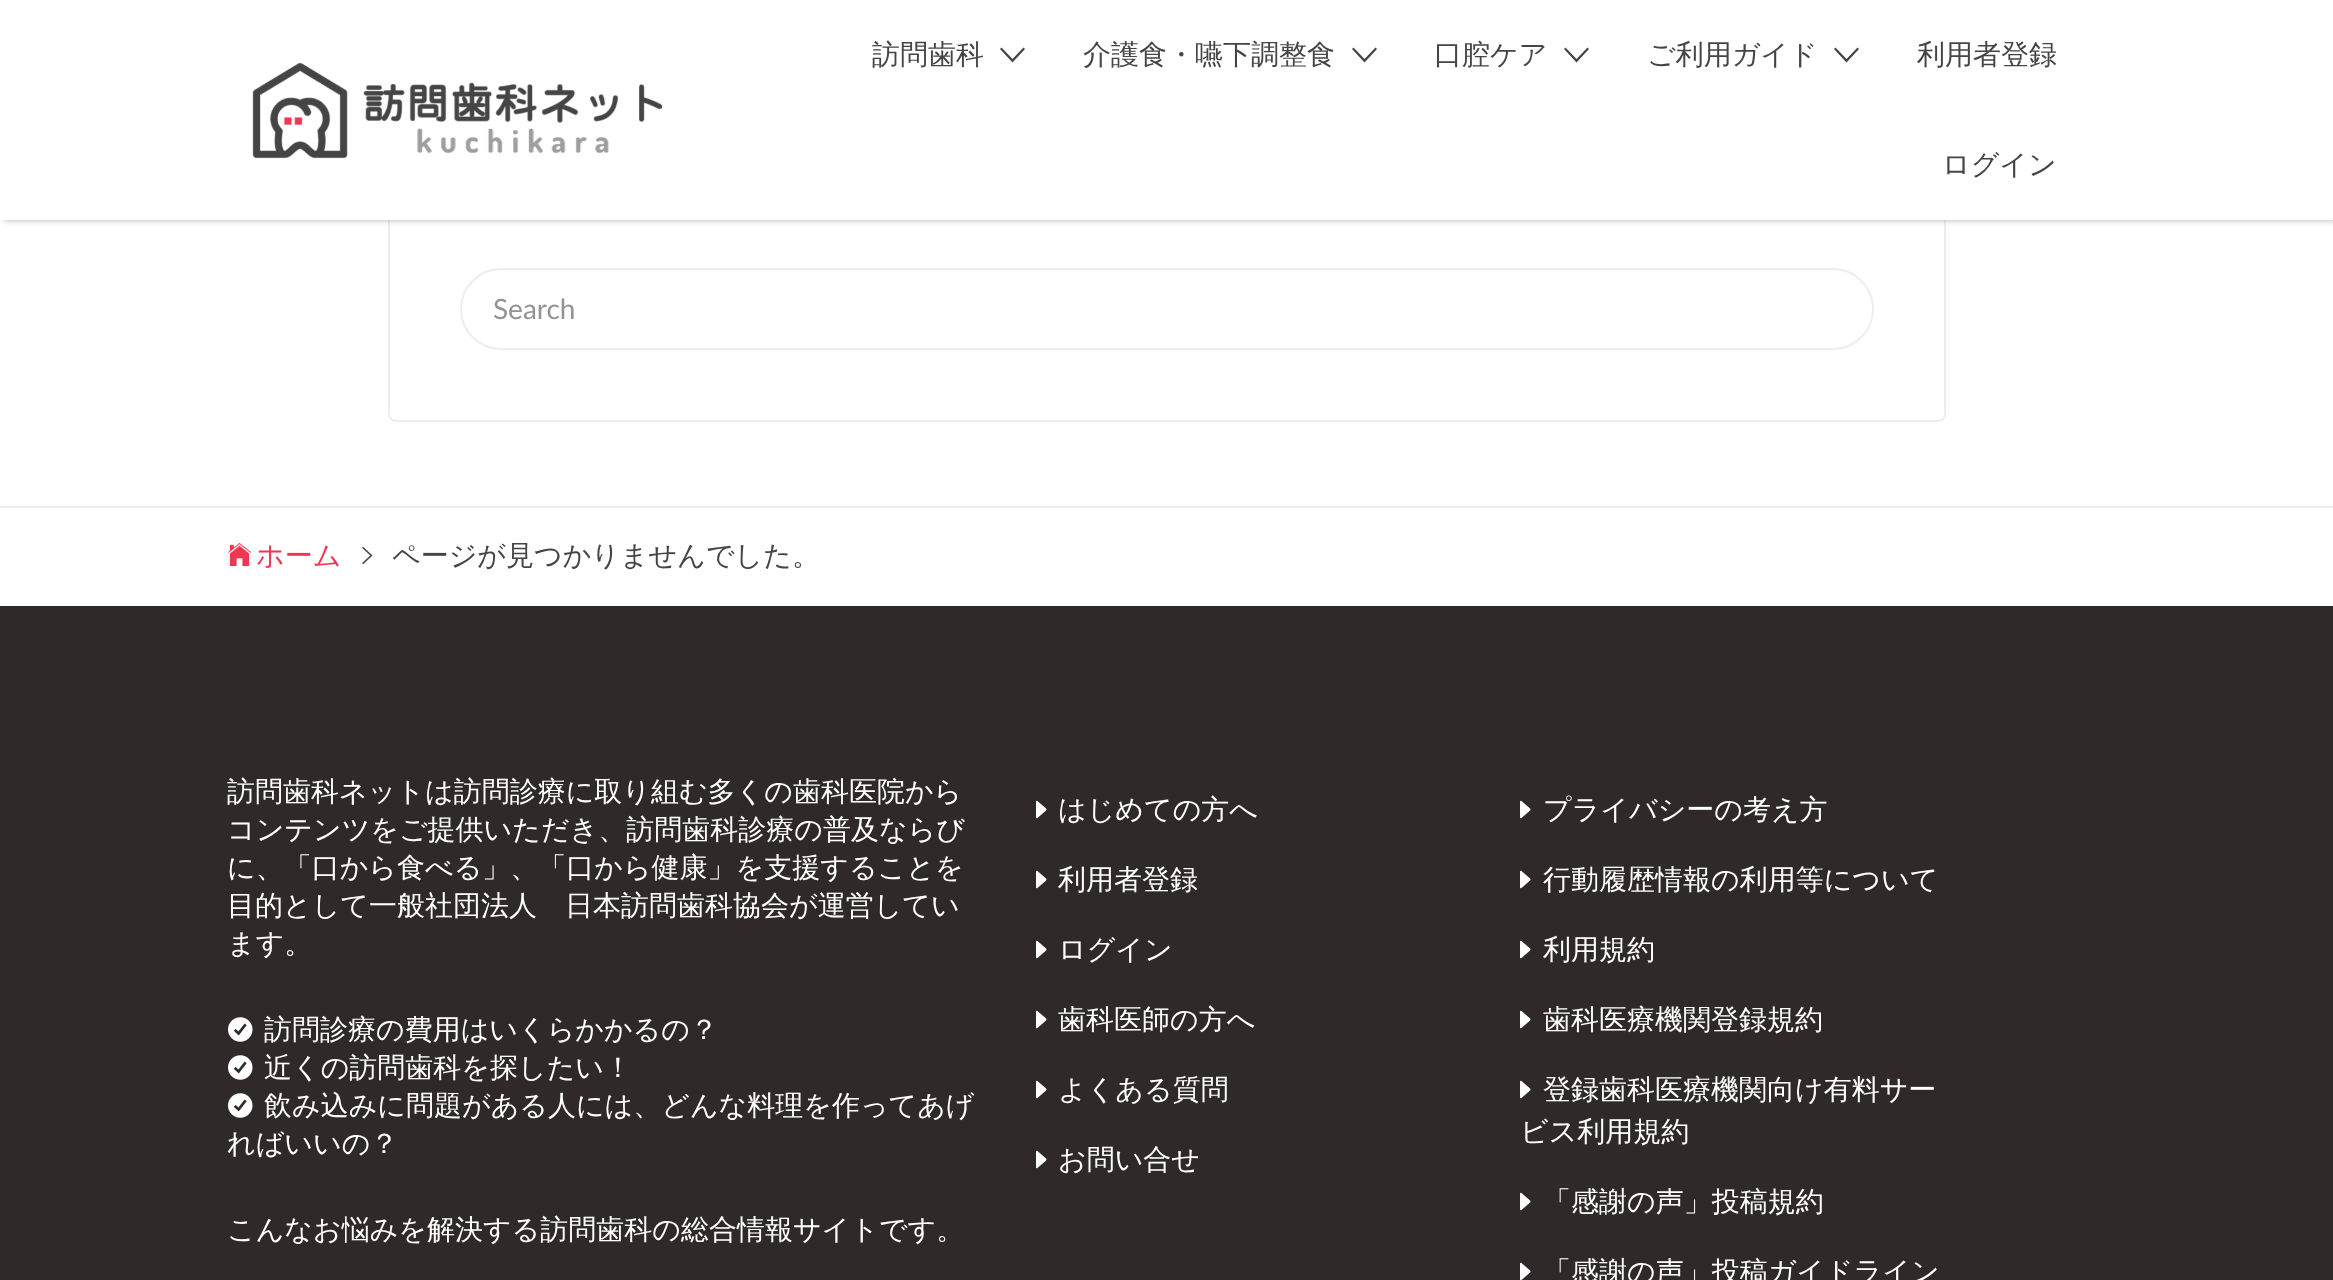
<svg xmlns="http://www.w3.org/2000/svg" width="2333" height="1280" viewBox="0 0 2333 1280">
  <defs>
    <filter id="blur1" x="-50%" y="-200%" width="200%" height="500%"><feGaussianBlur stdDeviation="3"/></filter>
  </defs>
  <rect width="100%" height="100%" fill="#ffffff"/>
  <rect x="389" y="37" width="1556" height="384" rx="7" fill="none" stroke="#ededed" stroke-width="2"/>
  <rect x="4" y="0" width="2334" height="220" fill="#000000" fill-opacity="0.3" filter="url(#blur1)"/>
  <rect x="0" y="0" width="2333" height="220" fill="#ffffff"/>
  <image x="252" y="63" width="411" height="96" href="img1.png"/>
  <text x="872" y="64" font-family="WenQuanYi Zen Hei" font-size="28" font-weight="500" fill="#454545">訪問歯科</text>
  <path d="M1023.5 47.5L1025 49L1012.5 62.5L1000 49L1001.5 47.5L1012.5 59Z" fill="#454545"/>
  <text x="1083" y="64" font-family="WenQuanYi Zen Hei" font-size="28" font-weight="500" fill="#454545">介護食・嚥下調整食</text>
  <path d="M1375.5 47.5L1377 49L1364.5 62.5L1352 49L1353.5 47.5L1364.5 59Z" fill="#454545"/>
  <text x="1434" y="64" font-family="WenQuanYi Zen Hei" font-size="28" font-weight="500" fill="#454545">口腔ケア</text>
  <path d="M1587.5 47.5L1589 49L1576.5 62.5L1564 49L1565.5 47.5L1576.5 59Z" fill="#454545"/>
  <text x="1647" y="64" font-family="WenQuanYi Zen Hei" font-size="28" font-weight="500" fill="#454545">ご利用ガイド</text>
  <path d="M1857.5 47.5L1859 49L1846.5 62.5L1834 49L1835.5 47.5L1846.5 59Z" fill="#454545"/>
  <text x="1917" y="64" font-family="WenQuanYi Zen Hei" font-size="28" font-weight="500" fill="#454545">利用者登録</text>
  <text x="1942" y="174" font-family="WenQuanYi Zen Hei" font-size="28" font-weight="500" fill="#454545">ログイン</text>
  <rect x="461" y="269" width="1412" height="80" rx="40" fill="none" stroke="#ededed" stroke-width="2"/>
  <text x="493" y="319" font-family="Lato" font-size="28" fill="#939393">Search</text>
  <rect x="0" y="506" width="2333" height="2" fill="#ededed"/>
  <image x="228" y="543" width="23" height="23" href="img2.png"/>
  <text x="256" y="565" font-family="WenQuanYi Zen Hei" font-size="28" font-weight="500" fill="#ef3652">ホーム</text>
  <image x="362" y="546" width="11" height="19" href="img3.png"/>
  <text x="392" y="565" font-family="WenQuanYi Zen Hei" font-size="28" font-weight="500" fill="#454545">ページが見つかりませんでした。</text>
  <rect x="0" y="606" width="2333" height="674" fill="#2f2929"/>
  <text x="227" y="801" font-family="WenQuanYi Zen Hei" font-size="28" font-weight="500" fill="#ffffff">訪問歯科ネットは訪問診療に取り組む多くの歯科医院から</text>
  <text x="227" y="839" font-family="WenQuanYi Zen Hei" font-size="28" font-weight="500" fill="#ffffff">コンテンツをご提供いただき、訪問歯科診療の普及ならび</text>
  <text x="227" y="877" font-family="WenQuanYi Zen Hei" font-size="28" font-weight="500" fill="#ffffff">に、「口から食べる」、「口から健康」を支援することを</text>
  <text x="227" y="915" font-family="WenQuanYi Zen Hei" font-size="28" font-weight="500" fill="#ffffff">目的として一般社団法人　日本訪問歯科協会が運営してい</text>
  <text x="227" y="953" font-family="WenQuanYi Zen Hei" font-size="28" font-weight="500" fill="#ffffff">ます。</text>
  <image x="228" y="1017" width="25" height="25" href="img4.png"/>
  <text x="264" y="1039" font-family="WenQuanYi Zen Hei" font-size="28" font-weight="500" fill="#ffffff">訪問診療の費用はいくらかかるの？</text>
  <image x="228" y="1055" width="25" height="25" href="img4.png"/>
  <text x="264" y="1077" font-family="WenQuanYi Zen Hei" font-size="28" font-weight="500" fill="#ffffff">近くの訪問歯科を探したい！</text>
  <image x="228" y="1093" width="25" height="25" href="img4.png"/>
  <text x="264" y="1115" font-family="WenQuanYi Zen Hei" font-size="28" font-weight="500" fill="#ffffff">飲み込みに問題がある人には、どんな料理を作ってあげ</text>
  <text x="227" y="1153" font-family="WenQuanYi Zen Hei" font-size="28" font-weight="500" fill="#ffffff">ればいいの？</text>
  <text x="227" y="1239" font-family="WenQuanYi Zen Hei" font-size="28" font-weight="500" fill="#ffffff">こんなお悩みを解決する訪問歯科の総合情報サイトです。</text>
  <image x="1036" y="800" width="11" height="19" href="img5.png"/>
  <text x="1058" y="819" font-family="WenQuanYi Zen Hei" font-size="28" font-weight="500" fill="#ffffff">はじめての方へ</text>
  <image x="1036" y="870" width="11" height="19" href="img5.png"/>
  <text x="1058" y="889" font-family="WenQuanYi Zen Hei" font-size="28" font-weight="500" fill="#ffffff">利用者登録</text>
  <image x="1036" y="940" width="11" height="19" href="img5.png"/>
  <text x="1058" y="959" font-family="WenQuanYi Zen Hei" font-size="28" font-weight="500" fill="#ffffff">ログイン</text>
  <image x="1036" y="1010" width="11" height="19" href="img5.png"/>
  <text x="1058" y="1029" font-family="WenQuanYi Zen Hei" font-size="28" font-weight="500" fill="#ffffff">歯科医師の方へ</text>
  <image x="1036" y="1080" width="11" height="19" href="img5.png"/>
  <text x="1058" y="1099" font-family="WenQuanYi Zen Hei" font-size="28" font-weight="500" fill="#ffffff">よくある質問</text>
  <image x="1036" y="1150" width="11" height="19" href="img5.png"/>
  <text x="1058" y="1169" font-family="WenQuanYi Zen Hei" font-size="28" font-weight="500" fill="#ffffff">お問い合せ</text>
  <image x="1520" y="800" width="11" height="19" href="img5.png"/>
  <text x="1543" y="819" font-family="WenQuanYi Zen Hei" font-size="28" font-weight="500" fill="#ffffff">プライバシーの考え方</text>
  <image x="1520" y="870" width="11" height="19" href="img5.png"/>
  <text x="1543" y="889" font-family="WenQuanYi Zen Hei" font-size="28" font-weight="500" fill="#ffffff">行動履歴情報の利用等について</text>
  <image x="1520" y="940" width="11" height="19" href="img5.png"/>
  <text x="1543" y="959" font-family="WenQuanYi Zen Hei" font-size="28" font-weight="500" fill="#ffffff">利用規約</text>
  <image x="1520" y="1010" width="11" height="19" href="img5.png"/>
  <text x="1543" y="1029" font-family="WenQuanYi Zen Hei" font-size="28" font-weight="500" fill="#ffffff">歯科医療機関登録規約</text>
  <image x="1520" y="1080" width="11" height="19" href="img5.png"/>
  <text x="1543" y="1099" font-family="WenQuanYi Zen Hei" font-size="28" font-weight="500" fill="#ffffff">登録歯科医療機関向け有料サー</text>
  <text x="1520" y="1141" font-family="WenQuanYi Zen Hei" font-size="28" font-weight="500" fill="#ffffff">ビス利用規約</text>
  <image x="1520" y="1192" width="11" height="19" href="img5.png"/>
  <text x="1543" y="1211" font-family="WenQuanYi Zen Hei" font-size="28" font-weight="500" fill="#ffffff">「感謝の声」投稿規約</text>
  <image x="1520" y="1262" width="11" height="18" href="img6.png"/>
  <text x="1543" y="1281" font-family="WenQuanYi Zen Hei" font-size="28" font-weight="500" fill="#ffffff">「感謝の声」投稿ガイドライン</text>
</svg>
